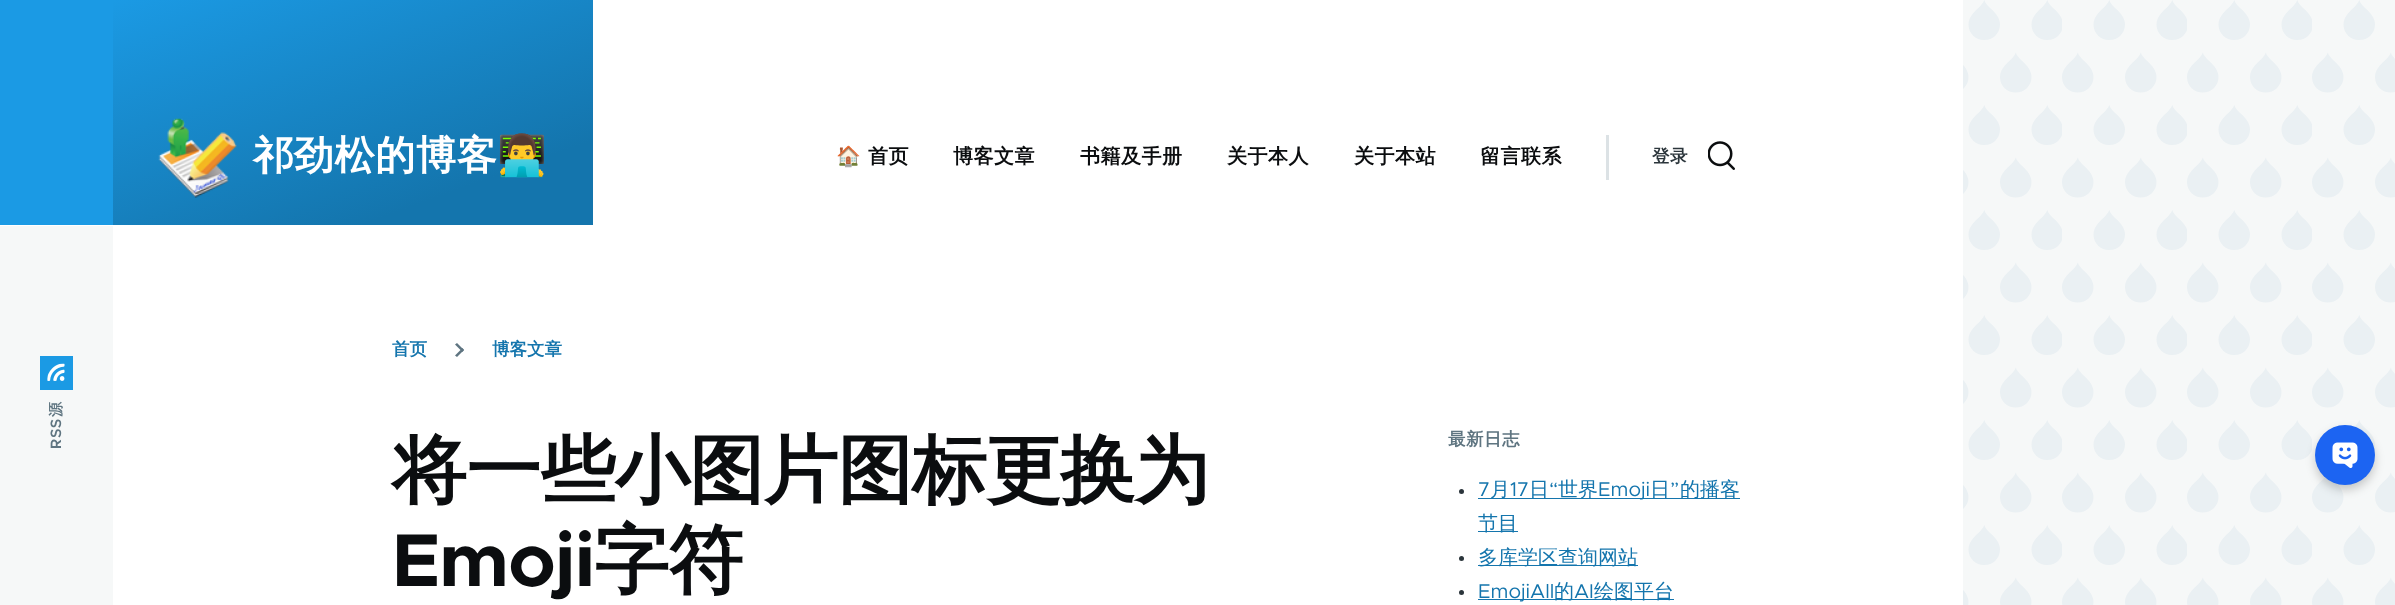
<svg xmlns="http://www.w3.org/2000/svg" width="2395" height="605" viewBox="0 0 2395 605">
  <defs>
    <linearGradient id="g1" gradientUnits="userSpaceOnUse" x1="288" y1="-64" x2="417" y2="289"><stop offset="0" stop-color="#1b9ae4"/><stop offset="0.79" stop-color="#1475ad"/></linearGradient>
    <filter id="blur1" x="-50%" y="-200%" width="200%" height="500%"><feGaussianBlur stdDeviation="5"/></filter>
  </defs>
  <rect width="100%" height="100%" fill="#f6f8f8"/>
  <image x="1963" y="0" width="432" height="605" href="img1.png"/>
  <rect x="0" y="0" width="1963" height="605" fill="#ffffff"/>
  <rect x="0" y="0" width="113" height="225" fill="#1b9ae4"/>
  <rect x="113" y="0" width="480" height="225" fill="url(#g1)"/>
  <image x="158" y="118" width="79" height="80" href="img2.png"/>
  <text x="253" y="169" font-family="WenQuanYi Zen Hei" font-size="40" font-weight="bold" letter-spacing="0.75" fill="#ffffff">祁劲松的博客</text>
  <text x="497" y="169" font-family="Noto Color Emoji" font-size="40" font-weight="bold" letter-spacing="0.75" fill="#ffffff">👨‍💻</text>
  <text x="836" y="163" font-family="Noto Color Emoji" font-size="20" font-weight="bold" letter-spacing="0.5" fill="#0b0d0f">🏠</text>
  <text x="868" y="163" font-family="WenQuanYi Zen Hei" font-size="20" font-weight="bold" letter-spacing="0.5" fill="#0b0d0f">首页</text>
  <text x="953" y="163" font-family="WenQuanYi Zen Hei" font-size="20" font-weight="bold" letter-spacing="0.5" fill="#0b0d0f">博客文章</text>
  <text x="1080" y="163" font-family="WenQuanYi Zen Hei" font-size="20" font-weight="bold" letter-spacing="0.5" fill="#0b0d0f">书籍及手册</text>
  <text x="1227" y="163" font-family="WenQuanYi Zen Hei" font-size="20" font-weight="bold" letter-spacing="0.5" fill="#0b0d0f">关于本人</text>
  <text x="1354" y="163" font-family="WenQuanYi Zen Hei" font-size="20" font-weight="bold" letter-spacing="0.5" fill="#0b0d0f">关于本站</text>
  <text x="1480" y="163" font-family="WenQuanYi Zen Hei" font-size="20" font-weight="bold" letter-spacing="0.5" fill="#0b0d0f">留言联系</text>
  <rect x="1606" y="135" width="3" height="45" fill="#dce2e5"/>
  <text x="1652" y="162" font-family="WenQuanYi Zen Hei" font-size="17.5" font-weight="bold" letter-spacing="0.5" fill="#2b353b">登录</text>
  <image x="1708" y="141" width="27" height="29" href="img3.png"/>
  <rect x="0" y="226" width="113" height="379" fill="#f6f8f8"/>
  <rect x="40" y="356" width="33" height="34" fill="#1b9ae4"/>
  <image x="47" y="363" width="18" height="18" href="img4.png"/>
  <text x="61" y="417" transform="rotate(-90 61 417)" font-family="WenQuanYi Zen Hei" font-size="15" font-weight="bold" letter-spacing="1" fill="#5f7581">源</text>
  <text x="61" y="449" transform="rotate(-90 61 449)" font-family="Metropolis" font-size="15" font-weight="600" letter-spacing="1" fill="#5f7581">RSS</text>
  <text x="392" y="355" font-family="WenQuanYi Zen Hei" font-size="17.5" font-weight="bold" fill="#1475ad">首页</text>
  <path d="M457 343L464 350L462.5 352L455 344.5Z" fill="#5f7581"/>
  <path d="M462.5 348L464 350L457 357L455 355.5Z" fill="#5f7581"/>
  <text x="492" y="355" font-family="WenQuanYi Zen Hei" font-size="17.5" font-weight="bold" fill="#1475ad">博客文章</text>
  <text x="392" y="496" font-family="WenQuanYi Zen Hei" font-size="75" font-weight="bold" letter-spacing="-0.75" fill="#0b0d0f">将一些小图片图标更换为</text>
  <text x="392" y="586" font-family="Metropolis" font-size="75" font-weight="bold" letter-spacing="-0.75" fill="#0b0d0f">Emoji</text>
  <text x="594" y="586" font-family="WenQuanYi Zen Hei" font-size="75" font-weight="bold" letter-spacing="-0.75" fill="#0b0d0f">字符</text>
  <text x="1448" y="445" font-family="WenQuanYi Zen Hei" font-size="17.5" font-weight="bold" letter-spacing="0.5" fill="#5f7581">最新日志</text>
  <circle cx="1461.5" cy="491.5" r="2.5" fill="#2b353b"/>
  <text x="1478" y="496" font-family="Metropolis" font-size="20" fill="#1475ad">7</text>
  <rect x="1478" y="498" width="262" height="1" fill="#1475ad"/>
  <text x="1490" y="496" font-family="WenQuanYi Zen Hei" font-size="20" font-weight="500" fill="#1475ad">月</text>
  <text x="1510" y="496" font-family="Metropolis" font-size="20" fill="#1475ad">17</text>
  <text x="1529" y="496" font-family="WenQuanYi Zen Hei" font-size="20" font-weight="500" fill="#1475ad">日</text>
  <text x="1549" y="496" font-family="Metropolis" font-size="20" fill="#1475ad">“</text>
  <text x="1558" y="496" font-family="WenQuanYi Zen Hei" font-size="20" font-weight="500" fill="#1475ad">世界</text>
  <text x="1598" y="496" font-family="Metropolis" font-size="20" fill="#1475ad">Emoji</text>
  <text x="1650" y="496" font-family="WenQuanYi Zen Hei" font-size="20" font-weight="500" fill="#1475ad">日</text>
  <text x="1670" y="496" font-family="Metropolis" font-size="20" fill="#1475ad">”</text>
  <text x="1680" y="496" font-family="WenQuanYi Zen Hei" font-size="20" font-weight="500" fill="#1475ad">的播客</text>
  <rect x="1478" y="531" width="40" height="1" fill="#1475ad"/>
  <text x="1478" y="530" font-family="WenQuanYi Zen Hei" font-size="20" font-weight="500" fill="#1475ad">节目</text>
  <circle cx="1461.5" cy="558.5" r="2.5" fill="#2b353b"/>
  <rect x="1478" y="565" width="160" height="1" fill="#1475ad"/>
  <text x="1478" y="564" font-family="WenQuanYi Zen Hei" font-size="20" font-weight="500" fill="#1475ad">多库学区查询网站</text>
  <circle cx="1461.5" cy="592.5" r="2.5" fill="#2b353b"/>
  <rect x="1478" y="599" width="196" height="1" fill="#1475ad"/>
  <text x="1478" y="598" font-family="Metropolis" font-size="20" fill="#1475ad">EmojiAll</text>
  <text x="1554" y="598" font-family="WenQuanYi Zen Hei" font-size="20" font-weight="500" fill="#1475ad">的</text>
  <text x="1574" y="598" font-family="Metropolis" font-size="20" fill="#1475ad">AI</text>
  <text x="1594" y="598" font-family="WenQuanYi Zen Hei" font-size="20" font-weight="500" fill="#1475ad">绘图平台</text>
  <rect x="2315" y="430" width="60" height="60" rx="30" fill="#000000" fill-opacity="0.2" filter="url(#blur1)"/>
  <circle cx="2345" cy="455" r="30" fill="#1c64f2"/>
  <image x="2332" y="442" width="26" height="27" href="img5.png"/>
</svg>
